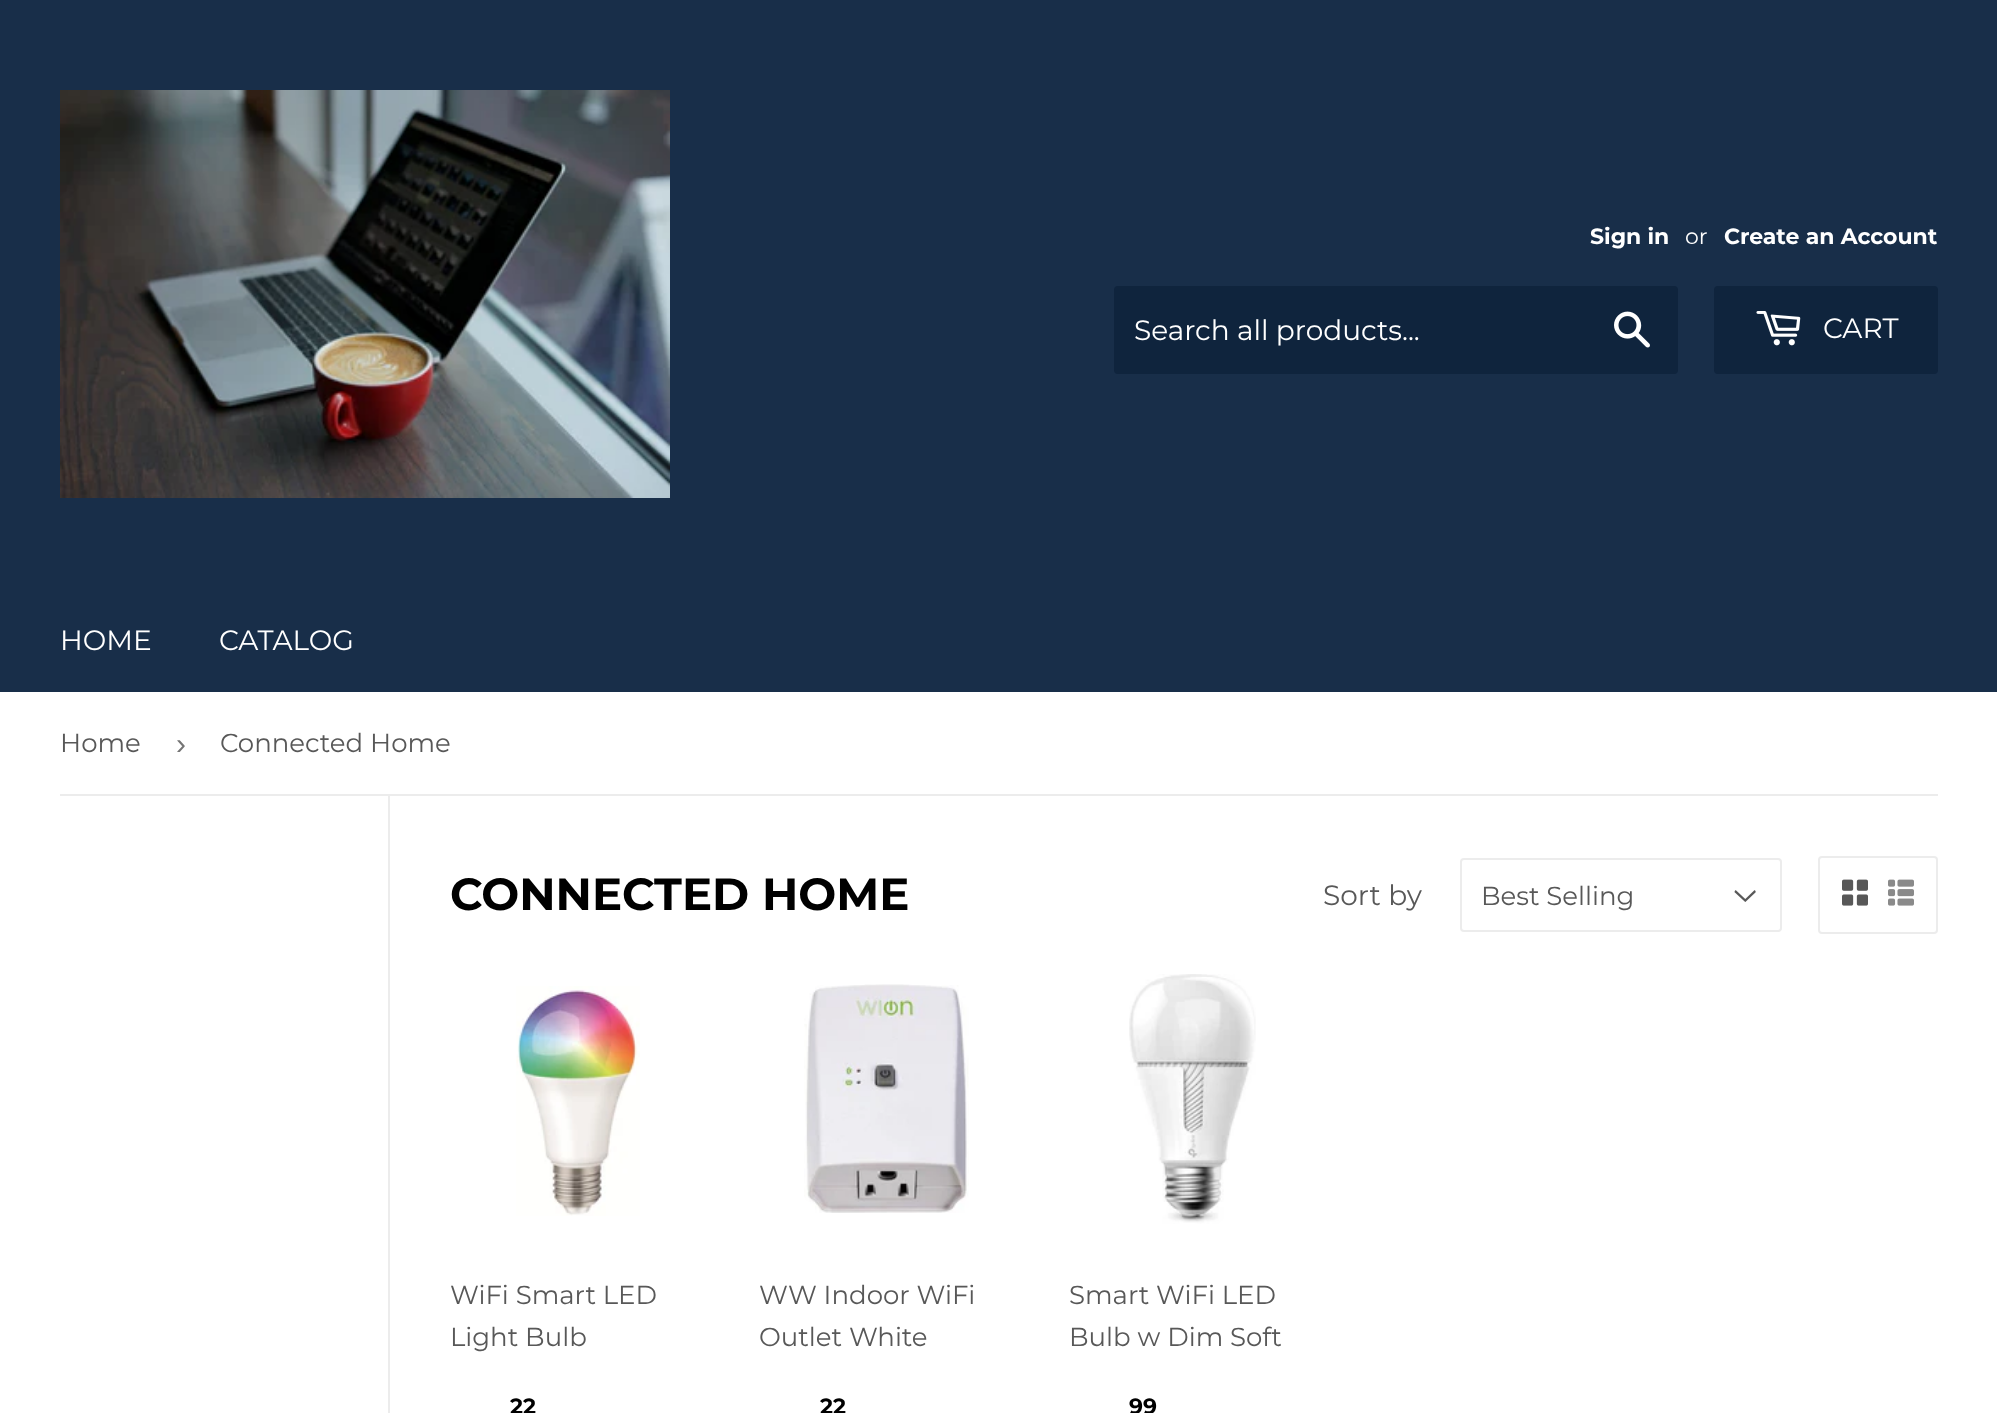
<svg xmlns="http://www.w3.org/2000/svg" width="1997" height="1413" viewBox="0 0 1997 1413">
  <rect width="100%" height="100%" fill="#ffffff"/>
  <rect x="0" y="0" width="1997" height="692" fill="#182e49"/>
  <image x="60" y="90" width="610" height="408" href="img1.png"/>
  <text x="1590" y="244" font-family="Montserrat" font-size="22" font-weight="bold" fill="#ffffff">Sign in</text>
  <text x="1685" y="244" font-family="Montserrat" font-size="22" fill="#ffffff">or</text>
  <text x="1724" y="244" font-family="Montserrat" font-size="22" font-weight="bold" fill="#ffffff">Create an Account</text>
  <rect x="1114" y="286" width="564" height="88" rx="4" fill="#0f243d"/>
  <text x="1134" y="340" font-family="Montserrat" font-size="28" fill="#ffffff">Search all products...</text>
  <image x="1614" y="311" width="36" height="37" href="img2.png"/>
  <rect x="1714" y="286" width="224" height="88" rx="4" fill="#0f243d"/>
  <image x="1756" y="311" width="45" height="35" href="img3.png"/>
  <text x="1823" y="338" font-family="Montserrat" font-size="28" fill="#ffffff">CART</text>
  <text x="60" y="650" font-family="Montserrat" font-size="28" fill="#ffffff">HOME</text>
  <text x="219" y="650" font-family="Montserrat" font-size="28" fill="#ffffff">CATALOG</text>
  <rect x="60" y="794" width="1878" height="2" fill="#ececec"/>
  <text x="60" y="752" font-family="Montserrat" font-size="26" fill="#585858">Home</text>
  <text x="176" y="754" font-family="Liberation Sans" font-size="30" fill="#767676">›</text>
  <text x="220" y="752" font-family="Montserrat" font-size="26" fill="#585858">Connected Home</text>
  <rect x="388" y="796" width="2" height="617" fill="#ececec"/>
  <text x="450" y="910" font-family="Montserrat" font-size="45" font-weight="bold" fill="#000000">CONNECTED HOME</text>
  <text x="1323" y="905" font-family="Montserrat" font-size="28" fill="#585858">Sort by</text>
  <image x="1734" y="890" width="22" height="12" href="img4.png"/>
  <rect x="1461" y="859" width="320" height="72" rx="3" fill="none" stroke="#ececec" stroke-width="2"/>
  <text x="1481" y="905" font-family="Montserrat" font-size="26" fill="#585858">Best Selling</text>
  <rect x="1819" y="857" width="118" height="76" rx="3" fill="none" stroke="#ececec" stroke-width="2"/>
  <image x="1842" y="879" width="26" height="27" href="img5.png"/>
  <image x="1888" y="879" width="26" height="27" href="img6.png"/>
  <image x="516" y="986" width="124" height="230" href="img7.png"/>
  <text x="450" y="1304" font-family="Montserrat" font-size="26" fill="#585858">WiFi Smart LED</text>
  <text x="450" y="1346" font-family="Montserrat" font-size="26" fill="#585858">Light Bulb</text>
  <text x="510" y="1414" font-family="Montserrat" font-size="22" font-weight="bold" fill="#000000">22</text>
  <image x="804" y="984" width="165" height="229" href="img8.png"/>
  <text x="759" y="1304" font-family="Montserrat" font-size="26" fill="#585858">WW Indoor WiFi</text>
  <text x="759" y="1346" font-family="Montserrat" font-size="26" fill="#585858">Outlet White</text>
  <text x="820" y="1414" font-family="Montserrat" font-size="22" font-weight="bold" fill="#000000">22</text>
  <image x="1129" y="974" width="127" height="250" href="img9.png"/>
  <text x="1069" y="1304" font-family="Montserrat" font-size="26" fill="#585858">Smart WiFi LED</text>
  <text x="1069" y="1346" font-family="Montserrat" font-size="26" fill="#585858">Bulb w Dim Soft</text>
  <text x="1129" y="1414" font-family="Montserrat" font-size="22" font-weight="bold" fill="#000000">99</text>
</svg>
